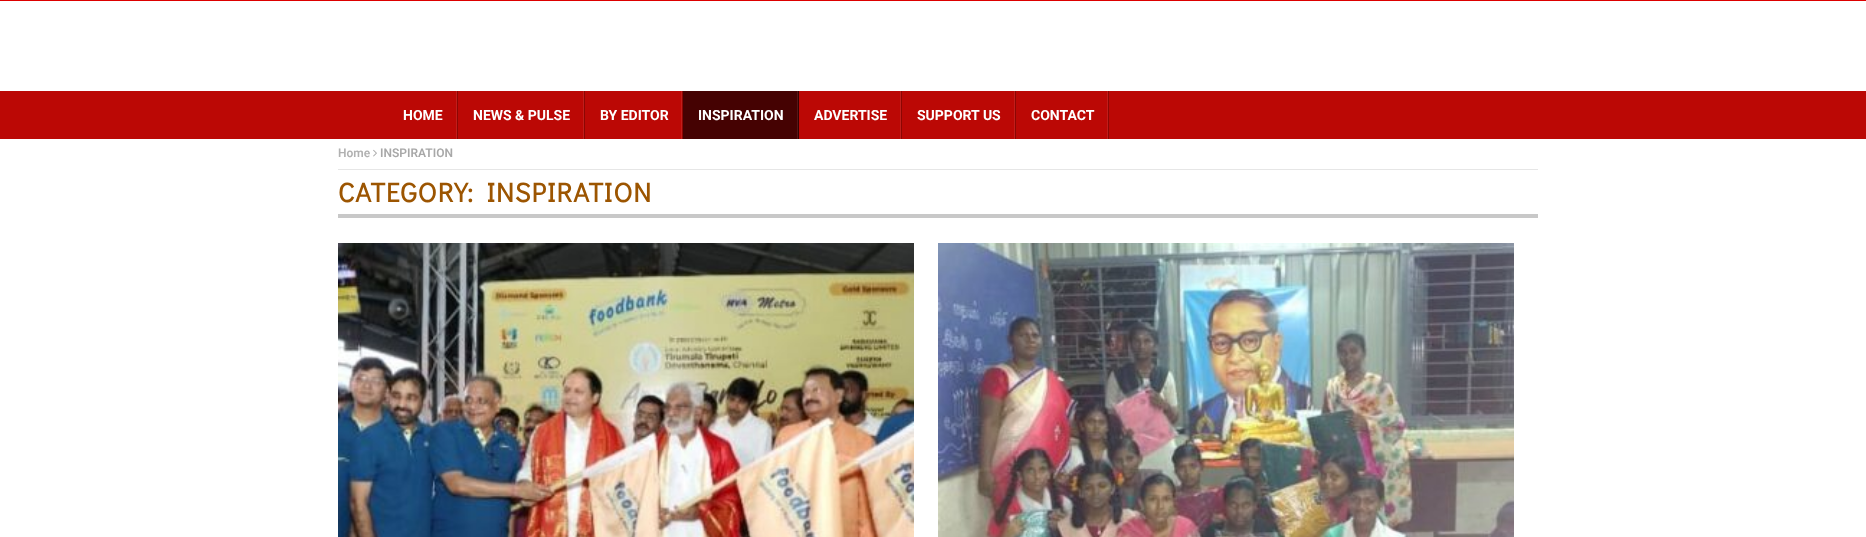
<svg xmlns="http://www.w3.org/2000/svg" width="1866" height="537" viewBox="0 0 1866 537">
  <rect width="100%" height="100%" fill="#ffffff"/>
  <rect x="0" y="0" width="1866" height="1" fill="#dd0000"/>
  <rect x="0" y="91" width="1866" height="48" fill="#bb0805"/>
  <image x="456" y="91" width="2" height="48" href="img1.png"/>
  <text x="403" y="120" font-family="Roboto" font-size="14" font-weight="bold" fill="#ffffff">HOME</text>
  <image x="583" y="91" width="2" height="48" href="img1.png"/>
  <text x="473" y="120" font-family="Roboto" font-size="14" font-weight="bold" fill="#ffffff">NEWS &amp; PULSE</text>
  <image x="681" y="91" width="2" height="48" href="img1.png"/>
  <text x="600" y="120" font-family="Roboto" font-size="14" font-weight="bold" fill="#ffffff">BY EDITOR</text>
  <rect x="683" y="91" width="116" height="48" fill="#450202"/>
  <image x="797" y="91" width="2" height="48" href="img2.png"/>
  <text x="698" y="120" font-family="Roboto" font-size="14" font-weight="bold" fill="#ffffff">INSPIRATION</text>
  <image x="900" y="91" width="2" height="48" href="img1.png"/>
  <text x="814" y="120" font-family="Roboto" font-size="14" font-weight="bold" fill="#ffffff">ADVERTISE</text>
  <image x="1014" y="91" width="2" height="48" href="img1.png"/>
  <text x="917" y="120" font-family="Roboto" font-size="14" font-weight="bold" fill="#ffffff">SUPPORT US</text>
  <image x="1107" y="91" width="2" height="48" href="img1.png"/>
  <text x="1031" y="120" font-family="Roboto" font-size="14" font-weight="bold" fill="#ffffff">CONTACT</text>
  <rect x="338" y="169" width="1200" height="1" fill="#e6e6e6"/>
  <text x="338" y="157" font-family="Roboto" font-size="12" font-weight="600" fill="#b1b1b1">Home</text>
  <image x="373" y="149" width="4" height="8" href="img3.png"/>
  <text x="380" y="157" font-family="Roboto" font-size="12" font-weight="600" fill="#a8a8a8">INSPIRATION</text>
  <rect x="338" y="214" width="1200" height="4" fill="#c8c8c8"/>
  <text x="338" y="202" font-family="Didact Gothic" font-size="27" font-weight="bold" letter-spacing="1" fill="#9c5501">CATEGORY: INSPIRATION</text>
  <image x="338" y="243" width="576" height="294" href="img4.png"/>
  <image x="938" y="243" width="576" height="294" href="img5.png"/>
</svg>
